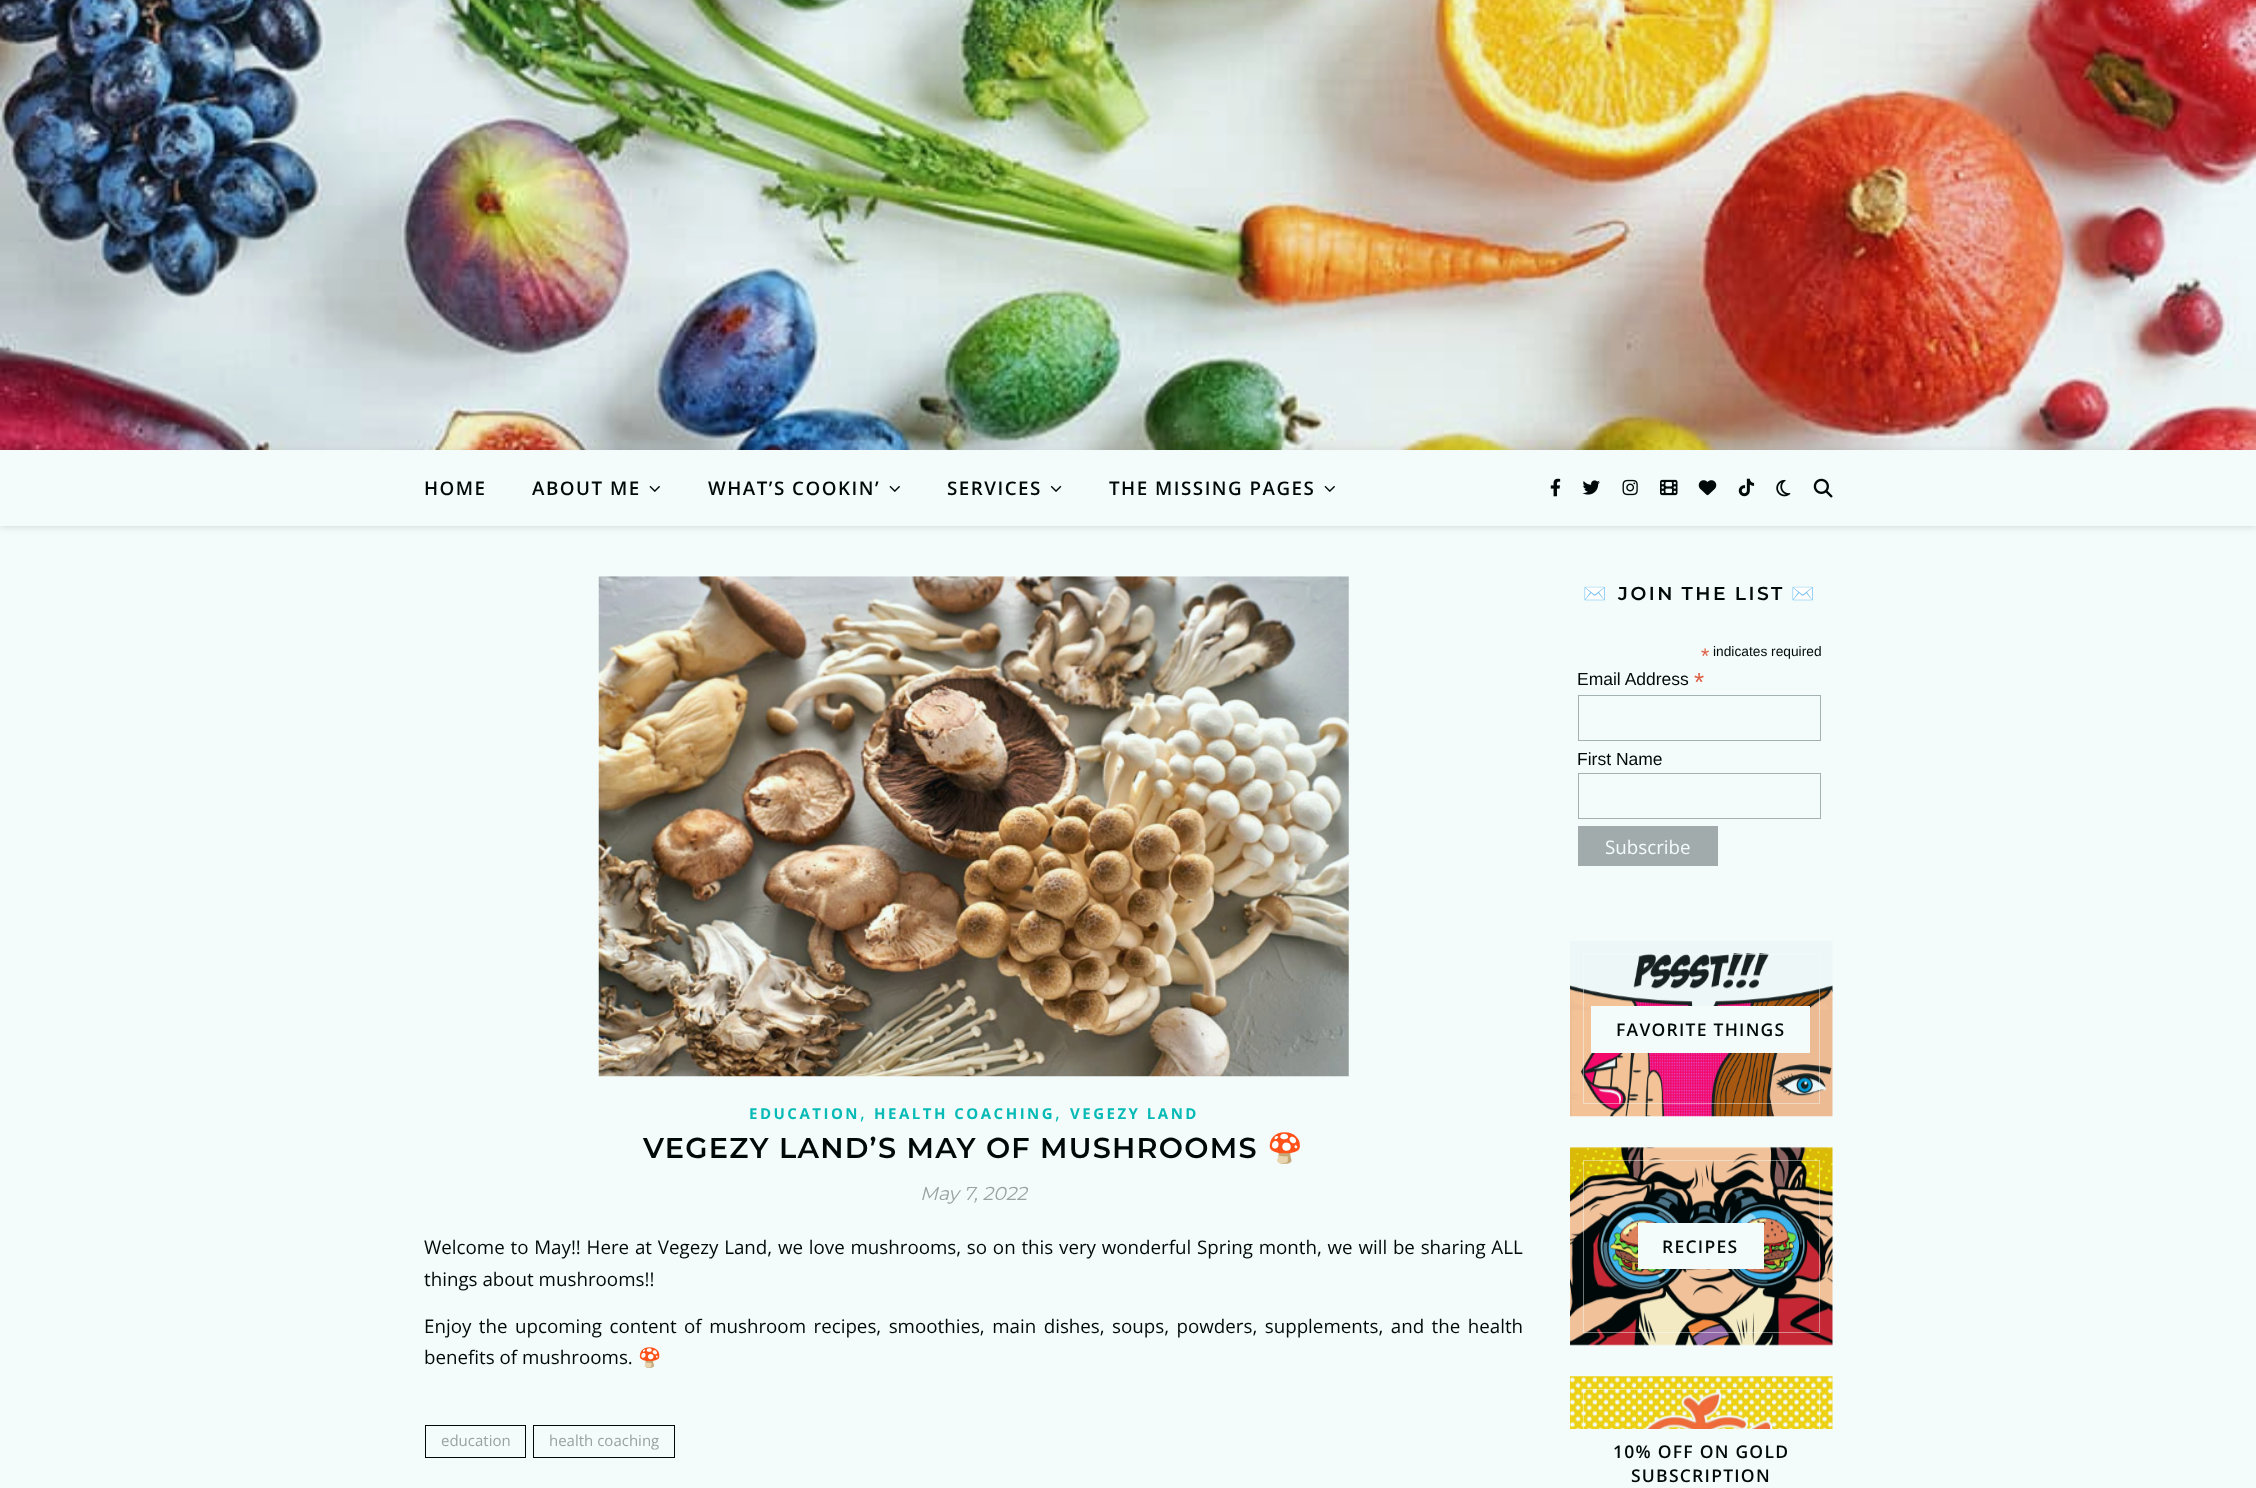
<svg xmlns="http://www.w3.org/2000/svg" width="2256" height="1488" viewBox="0 0 2256 1488">
  <defs>
    <clipPath id="clip1"><path d="M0 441H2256V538H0ZM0 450H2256V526H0Z" clip-rule="evenodd"/></clipPath>
    <filter id="blur1" x="-50%" y="-200%" width="200%" height="500%"><feGaussianBlur stdDeviation="3"/></filter>
  </defs>
  <rect width="100%" height="100%" fill="#f3fcfb"/>
  <image x="0" y="0" width="2256" height="450" href="img1.png"/>
  <g clip-path="url(#clip1)">
    <rect x="0" y="451" width="2256" height="77" fill="#000909" fill-opacity="0.1" filter="url(#blur1)"/>
  </g>
  <text x="424" y="495" font-family="Open Sans" font-size="18.75" font-weight="600" letter-spacing="1.5" fill="#000909">HOME</text>
  <text x="532" y="495" font-family="Open Sans" font-size="18.75" font-weight="600" letter-spacing="1.5" fill="#000909">ABOUT ME</text>
  <image x="649" y="485" width="11" height="7" href="img2.png"/>
  <text x="708" y="495" font-family="Open Sans" font-size="18.75" font-weight="600" letter-spacing="1.5" fill="#000909">WHAT’S COOKIN’</text>
  <image x="889" y="485" width="11" height="7" href="img2.png"/>
  <text x="947" y="495" font-family="Open Sans" font-size="18.75" font-weight="600" letter-spacing="1.5" fill="#000909">SERVICES</text>
  <image x="1050" y="485" width="12" height="7" href="img3.png"/>
  <text x="1109" y="495" font-family="Open Sans" font-size="18.75" font-weight="600" letter-spacing="1.5" fill="#000909">THE MISSING PAGES</text>
  <image x="1324" y="485" width="11" height="7" href="img2.png"/>
  <image x="1550" y="478" width="11" height="19" href="img4.png"/>
  <image x="1582" y="480" width="18" height="15" href="img5.png"/>
  <image x="1622" y="479" width="16" height="17" href="img6.png"/>
  <image x="1660" y="479" width="18" height="17" href="img7.png"/>
  <image x="1698" y="480" width="19" height="16" href="img8.png"/>
  <image x="1738" y="478" width="17" height="19" href="img9.png"/>
  <image x="1776" y="479" width="15" height="18" href="img10.png"/>
  <image x="1813" y="478" width="20" height="20" href="img11.png"/>
  <image x="598" y="576" width="751" height="501" href="img12.png"/>
  <text x="749" y="1119" font-family="Open Sans" font-size="15" font-weight="bold" letter-spacing="2.5" fill="#07bab6">EDUCATION</text>
  <text x="860" y="1119" font-family="Open Sans" font-size="18.75" fill="#07bab6">,</text>
  <text x="874" y="1119" font-family="Open Sans" font-size="15" font-weight="bold" letter-spacing="2.5" fill="#07bab6">HEALTH COACHING</text>
  <text x="1055" y="1119" font-family="Open Sans" font-size="18.75" fill="#07bab6">,</text>
  <text x="1070" y="1119" font-family="Open Sans" font-size="15" font-weight="bold" letter-spacing="2.5" fill="#07bab6">VEGEZY LAND</text>
  <text x="643" y="1158" font-family="Montserrat" font-size="28.75" font-weight="600" letter-spacing="1.25" fill="#000909">VEGEZY LAND’S MAY OF MUSHROOMS</text>
  <text x="1267" y="1158" font-family="Noto Color Emoji" font-size="28.75" font-weight="bold" letter-spacing="1.25" fill="#000909">🍄</text>
  <text x="920" y="1200" font-family="Montserrat" font-size="18.75" font-style="italic" fill="#99a2a2">May 7, 2022</text>
  <text x="424" y="1254" word-spacing="0.9" font-family="Open Sans" font-size="18.75" fill="#000909">Welcome to May!! Here at Vegezy Land, we love mushrooms, so on this very wonderful Spring month, we will be sharing ALL</text>
  <text x="424" y="1286" font-family="Open Sans" font-size="18.75" fill="#000909">things about mushrooms!!</text>
  <text x="424" y="1333" word-spacing="2.6" font-family="Open Sans" font-size="18.75" fill="#000909">Enjoy the upcoming content of mushroom recipes, smoothies, main dishes, soups, powders, supplements, and the health</text>
  <text x="424" y="1364" font-family="Open Sans" font-size="18.75" fill="#000909">benefits of mushrooms.</text>
  <text x="638" y="1364" font-family="Noto Color Emoji" font-size="18.75" fill="#000909">🍄</text>
  <rect x="425.5" y="1425.5" width="100" height="32" fill="none" stroke="#000909"/>
  <text x="441" y="1446" font-family="Open Sans" font-size="15" fill="#99a2a2">education</text>
  <rect x="533.5" y="1425.5" width="141" height="32" fill="none" stroke="#000909"/>
  <text x="549" y="1446" font-family="Open Sans" font-size="15" fill="#99a2a2">health coaching</text>
  <text x="1583" y="600" font-family="Noto Color Emoji" font-size="18.75" font-weight="bold" letter-spacing="2.5" fill="#000909">✉️</text>
  <text x="1618" y="600" word-spacing="-1" font-family="Montserrat" font-size="18.75" font-weight="600" letter-spacing="2.5" fill="#000909">JOIN THE LIST</text>
  <text x="1791" y="600" font-family="Noto Color Emoji" font-size="18.75" font-weight="bold" letter-spacing="2.5" fill="#000909">✉️</text>
  <text x="1701" y="663" font-family="Liberation Sans" font-size="21" fill="#dd6147">*</text>
  <text x="1713" y="656" font-family="Liberation Sans" font-size="13.75" fill="#000909">indicates required</text>
  <text x="1577" y="685" font-family="Liberation Sans" font-size="17.5" fill="#000909">Email Address</text>
  <text x="1694" y="691" font-family="Liberation Sans" font-size="26" fill="#dd6147">*</text>
  <rect x="1578.5" y="695.5" width="242" height="45" fill="none" stroke="#a3b1b2"/>
  <text x="1577" y="765" font-family="Liberation Sans" font-size="17.5" fill="#000909">First Name</text>
  <rect x="1578.5" y="773.5" width="242" height="45" fill="none" stroke="#a3b1b2"/>
  <rect x="1578" y="826" width="140" height="40" fill="#a2abab"/>
  <text x="1605" y="854" font-family="Open Sans" font-size="18.75" fill="#f3fcfb">Subscribe</text>
  <image x="1570" y="941" width="263" height="176" href="img13.png"/>
  <rect x="1583.5" y="954.5" width="236" height="149" fill="none" stroke="#f3fcfb" stroke-opacity="0.45"/>
  <rect x="1591" y="1006" width="219" height="47" fill="#f3fcfb"/>
  <text x="1616" y="1036" font-family="Open Sans" font-size="17.5" font-weight="600" letter-spacing="1.25" fill="#000909">FAVORITE THINGS</text>
  <image x="1570" y="1147" width="263" height="199" href="img14.png"/>
  <rect x="1583.5" y="1160.5" width="236" height="172" fill="none" stroke="#f3fcfb" stroke-opacity="0.45"/>
  <rect x="1638" y="1223" width="126" height="46" fill="#f3fcfb"/>
  <text x="1662" y="1253" font-family="Open Sans" font-size="17.5" font-weight="600" letter-spacing="1.25" fill="#000909">RECIPES</text>
  <image x="1570" y="1376" width="263" height="53" href="img15.png"/>
  <rect x="1583.5" y="1389.5" width="236" height="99" fill="none" stroke="#f3fcfb" stroke-opacity="0.45"/>
  <text x="1613" y="1458" font-family="Open Sans" font-size="17.5" font-weight="600" letter-spacing="1.25" fill="#000909">10% OFF ON GOLD</text>
  <text x="1631" y="1482" font-family="Open Sans" font-size="17.5" font-weight="600" letter-spacing="1.25" fill="#000909">SUBSCRIPTION</text>
</svg>
